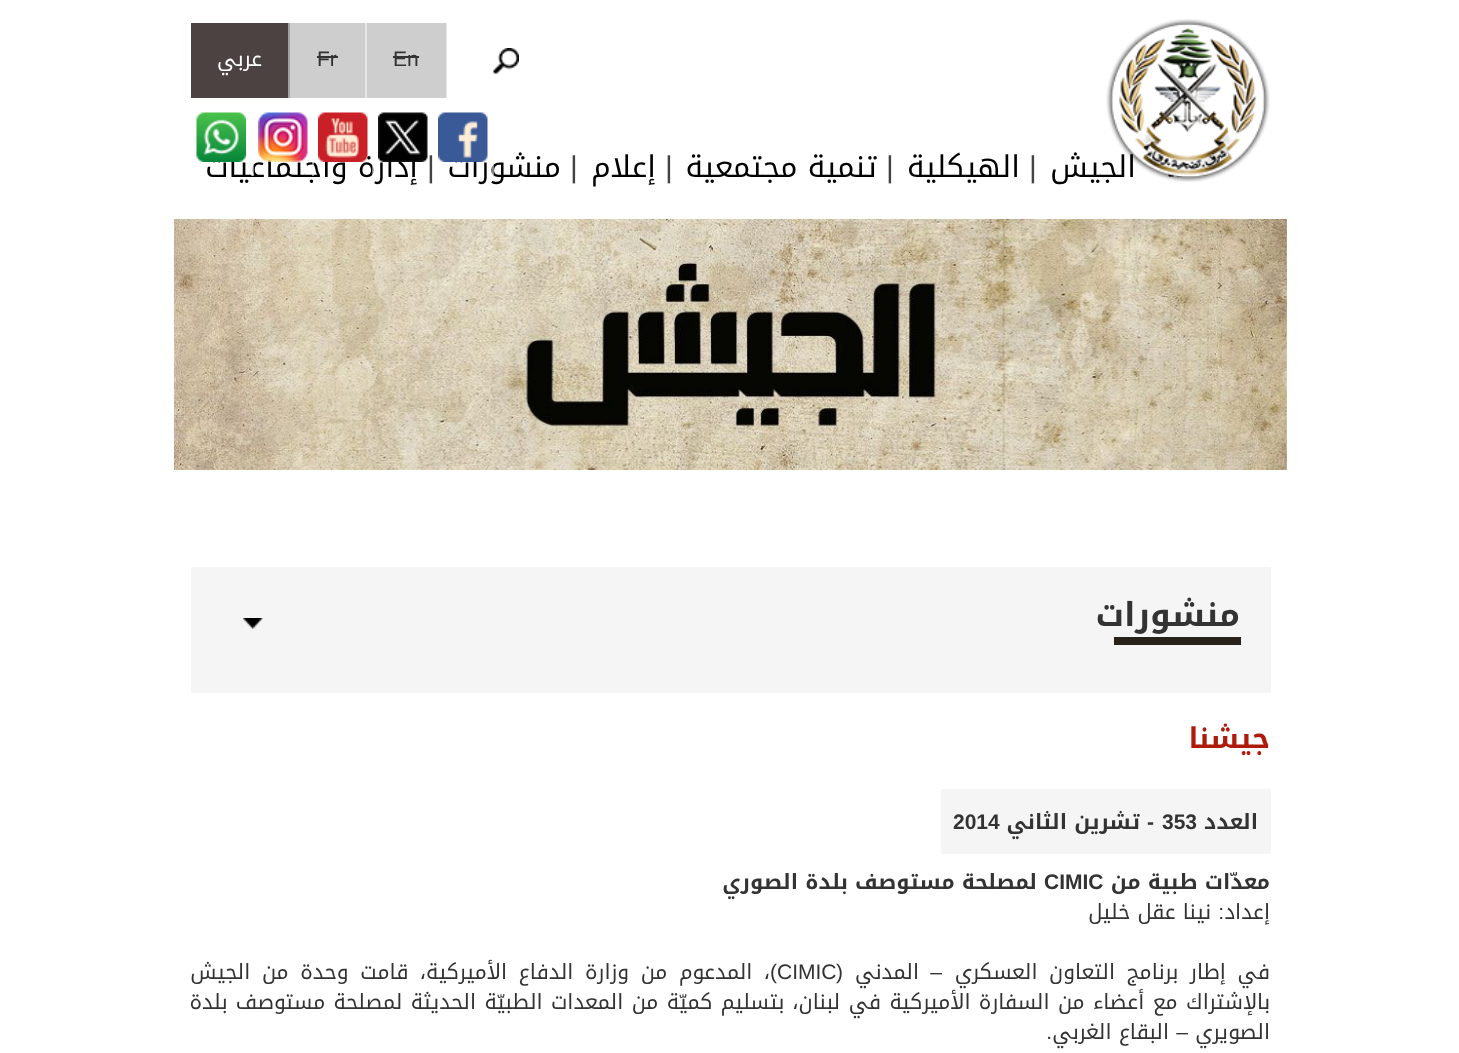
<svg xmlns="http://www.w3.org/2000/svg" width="1459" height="1053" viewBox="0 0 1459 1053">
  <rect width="100%" height="100%" fill="#ffffff"/>
  <image x="1168" y="173" width="14" height="4" href="img8.png"/>
  <text x="1136" y="177" font-family="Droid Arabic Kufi" font-size="30" direction="rtl" fill="#000000">الجيش</text>
  <image x="1106" y="19" width="164" height="163" href="img1.png"/>
  <image x="493" y="48" width="26" height="26" href="img2.png"/>
  <rect x="367" y="23" width="79" height="75" fill="#cecece"/>
  <rect x="446" y="23" width="1" height="75" fill="#e7e7e7"/>
  <text x="393" y="66" font-family="Liberation Sans" font-size="21" fill="#333333">En</text>
  <rect x="393" y="56" width="26" height="2" fill="#333333"/>
  <rect x="290" y="23" width="75" height="75" fill="#cecece"/>
  <rect x="365" y="23" width="2" height="75" fill="#e7e7e7"/>
  <text x="317" y="66" font-family="Liberation Sans" font-size="21" fill="#333333">Fr</text>
  <rect x="317" y="56" width="21" height="2" fill="#333333"/>
  <rect x="191" y="23" width="97" height="75" fill="#4c4242"/>
  <rect x="288" y="23" width="2" height="75" fill="#a6a1a1"/>
  <text x="262" y="66" font-family="Droid Arabic Kufi" font-size="21" direction="rtl" fill="#ffffff">عربي</text>
  <text x="561" y="177" font-family="Droid Arabic Kufi" font-size="30" direction="rtl" fill="#000000">منشورات</text>
  <rect x="492" y="164" width="2" height="12" fill="#ffffff" fill-opacity="0.5"/>
  <image x="438" y="112" width="50" height="50" href="img3.png"/>
  <text x="418" y="177" font-family="Droid Arabic Kufi" font-size="30" direction="rtl" fill="#000000">إدارة واجتماعيات</text>
  <image x="378" y="112" width="50" height="50" href="img4.png"/>
  <rect x="372" y="166" width="2" height="10" fill="#ffffff" fill-opacity="0.5"/>
  <image x="318" y="112" width="50" height="50" href="img5.png"/>
  <rect x="312" y="162" width="2" height="14" fill="#ffffff" fill-opacity="0.5"/>
  <rect x="252" y="163" width="2" height="13" fill="#ffffff" fill-opacity="0.5"/>
  <image x="258" y="112" width="50" height="50" href="img6.png"/>
  <rect x="251" y="165" width="2" height="11" fill="#ffffff" fill-opacity="0.5"/>
  <image x="196" y="112" width="50" height="50" href="img7.png"/>
  <text x="1029" y="177" font-family="Liberation Sans" font-size="30" fill="#434342">|</text>
  <text x="1020" y="177" font-family="Droid Arabic Kufi" font-size="30" direction="rtl" fill="#000000">الهيكلية</text>
  <text x="886" y="177" font-family="Liberation Sans" font-size="30" fill="#434342">|</text>
  <text x="877" y="177" font-family="Droid Arabic Kufi" font-size="30" direction="rtl" fill="#000000">تنمية مجتمعية</text>
  <text x="665" y="177" font-family="Liberation Sans" font-size="30" fill="#434342">|</text>
  <text x="656" y="177" font-family="Droid Arabic Kufi" font-size="30" direction="rtl" fill="#000000">إعلام</text>
  <text x="570" y="177" font-family="Liberation Sans" font-size="30" fill="#434342">|</text>
  <text x="427" y="177" font-family="Liberation Sans" font-size="30" fill="#434342">|</text>
  <image x="174" y="219" width="1113" height="251" href="img9.png"/>
  <rect x="191" y="567" width="1080" height="126" fill="#f5f5f5"/>
  <image x="243" y="618" width="20" height="11" href="img10.png"/>
  <text x="1240" y="626" font-family="Droid Arabic Kufi" font-size="33" font-weight="bold" direction="rtl" fill="#333333">منشورات</text>
  <rect x="1114" y="637" width="127" height="8" fill="#28221b"/>
  <text x="1270" y="748" font-family="Droid Arabic Kufi" font-size="28.5" font-weight="bold" direction="rtl" fill="#af1b0a">جيشنا</text>
  <rect x="941" y="789" width="330" height="65" fill="#f5f5f5"/>
  <text x="1258" y="829" font-family="Droid Arabic Kufi" font-size="21" font-weight="bold" direction="rtl" fill="#333333">العدد</text>
  <text x="1162" y="829" font-family="Liberation Sans" font-size="21" font-weight="bold" fill="#333333">353</text>
  <text x="1147" y="829" font-family="Liberation Sans" font-size="21" font-weight="bold" fill="#333333">-</text>
  <text x="1140" y="829" font-family="Droid Arabic Kufi" font-size="21" font-weight="bold" direction="rtl" fill="#333333">تشرين الثاني</text>
  <text x="953" y="829" font-family="Liberation Sans" font-size="21" font-weight="bold" fill="#333333">2014</text>
  <text x="1270" y="889" font-family="Droid Arabic Kufi" font-size="21" font-weight="bold" direction="rtl" fill="#333333">معدّات طبية من</text>
  <text x="1044" y="889" font-family="Liberation Sans" font-size="21" font-weight="bold" fill="#333333">CIMIC</text>
  <text x="1037" y="889" font-family="Droid Arabic Kufi" font-size="21" font-weight="bold" direction="rtl" fill="#333333">لمصلحة مستوصف بلدة الصوري</text>
  <text x="1270" y="919" font-family="Droid Arabic Kufi" font-size="21" direction="rtl" fill="#333333">إعداد</text>
  <text x="1224" y="919" font-family="Liberation Sans" font-size="21" direction="rtl" fill="#333333">:</text>
  <text x="1211" y="919" font-family="Droid Arabic Kufi" font-size="21" direction="rtl" fill="#333333">نينا عقل خليل</text>
  <text x="1270" y="979" word-spacing="4.5" font-family="Droid Arabic Kufi" font-size="21" direction="rtl" fill="#333333">في إطار برنامج التعاون العسكري</text>
  <text x="942" y="979" font-family="Liberation Sans" font-size="21" direction="rtl" fill="#333333">–</text>
  <text x="919" y="979" font-family="Droid Arabic Kufi" font-size="21" direction="rtl" fill="#333333">المدني</text>
  <text x="843" y="979" font-family="Liberation Sans" font-size="21" direction="rtl" fill="#333333">(</text>
  <text x="777" y="979" font-family="Liberation Sans" font-size="21" fill="#333333">CIMIC</text>
  <text x="777" y="979" font-family="Liberation Sans" font-size="21" direction="rtl" fill="#333333">)</text>
  <text x="770" y="979" word-spacing="4.5" font-family="Droid Arabic Kufi" font-size="21" direction="rtl" fill="#333333">، المدعوم من وزارة الدفاع الأميركية، قامت وحدة من الجيش</text>
  <text x="1270" y="1009" word-spacing="1.25" font-family="Droid Arabic Kufi" font-size="21" direction="rtl" fill="#333333">بالإشتراك مع أعضاء من السفارة الأميركية في لبنان، بتسليم كميّة من المعدات الطبيّة الحديثة لمصلحة مستوصف بلدة</text>
  <text x="1270" y="1039" font-family="Droid Arabic Kufi" font-size="21" direction="rtl" fill="#333333">الصويري</text>
  <text x="1188" y="1039" font-family="Liberation Sans" font-size="21" direction="rtl" fill="#333333">–</text>
  <text x="1169" y="1039" font-family="Droid Arabic Kufi" font-size="21" direction="rtl" fill="#333333">البقاع الغربي</text>
  <text x="1052" y="1039" font-family="Liberation Sans" font-size="21" direction="rtl" fill="#333333">.</text>
</svg>
